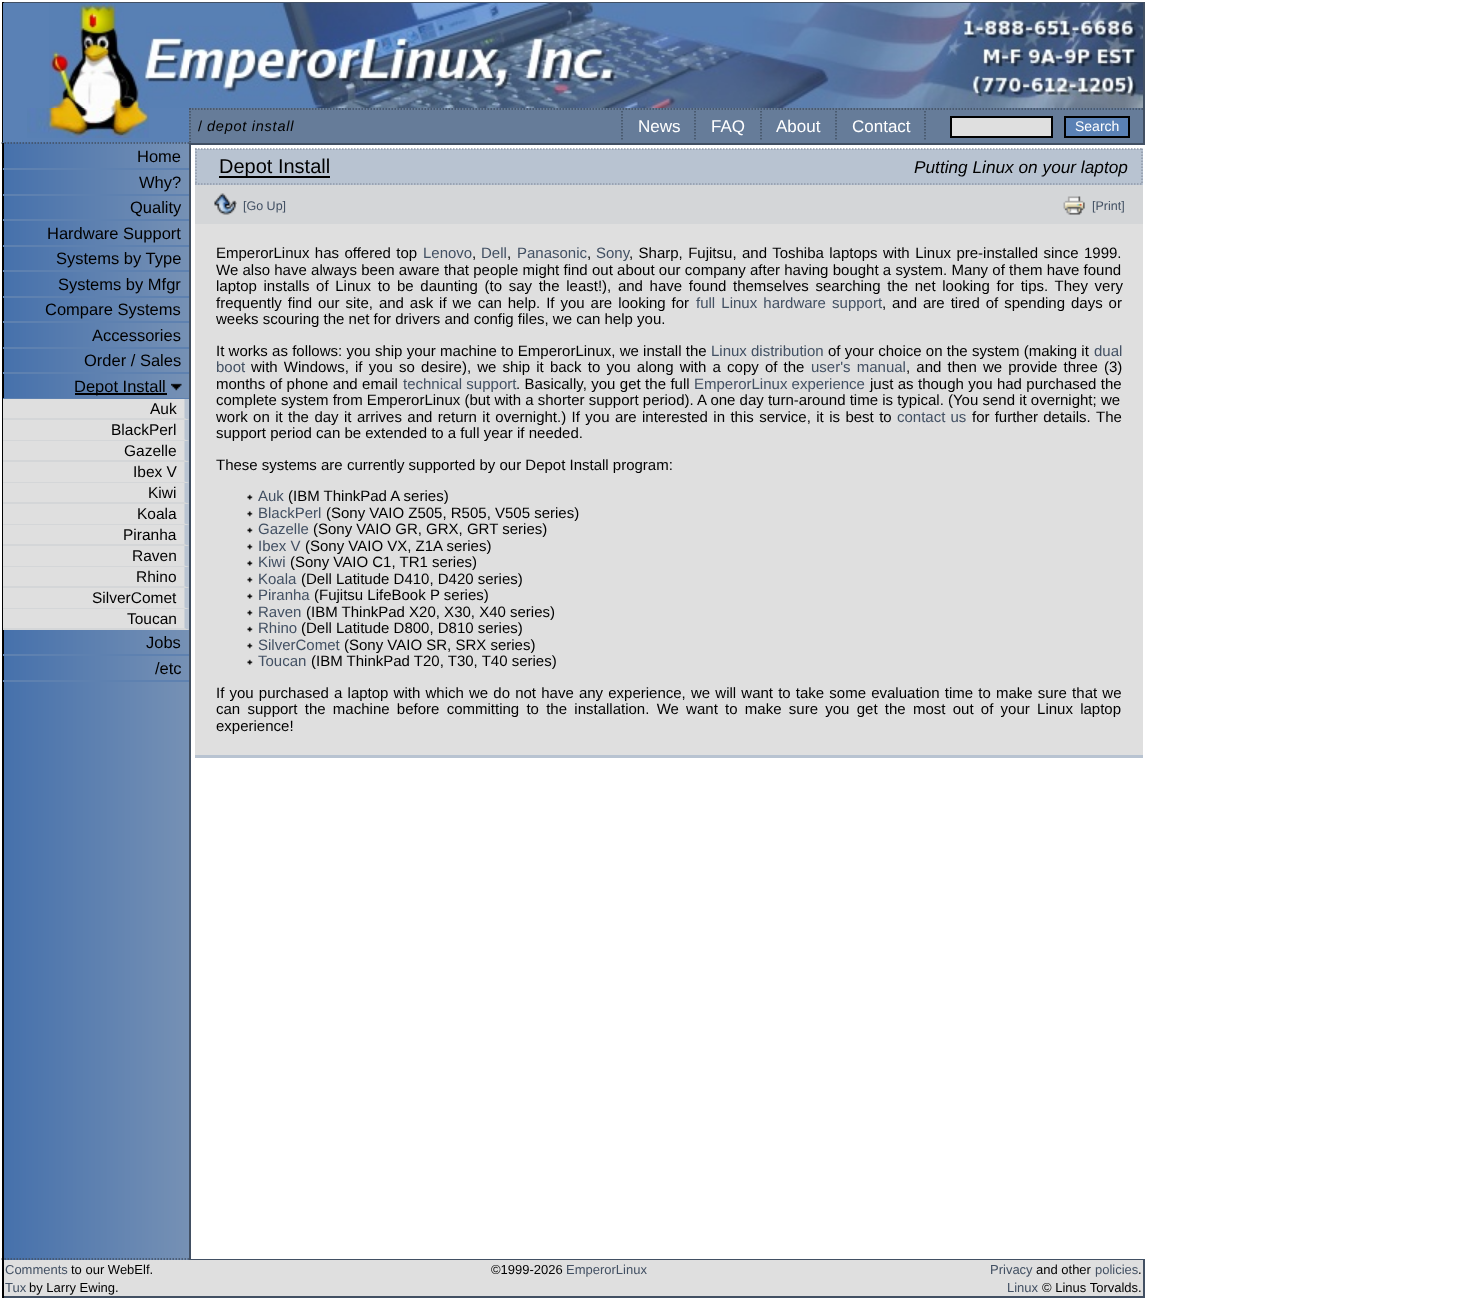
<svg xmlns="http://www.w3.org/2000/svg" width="1468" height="1299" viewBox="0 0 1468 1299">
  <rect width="100%" height="100%" fill="#ffffff"/>
  <rect x="2" y="2" width="1143" height="1" fill="#425063"/>
  <rect x="1143" y="2" width="2" height="141" fill="#425063"/>
  <rect x="2" y="2" width="2" height="141" fill="#000000"/>
  <rect x="3" y="3" width="46" height="105" fill="#5a81b5"/>
  <image x="49" y="3" width="140" height="105" href="img1.png"/>
  <image x="189" y="3" width="954" height="105" href="img2.png"/>
  <rect x="189" y="108" width="954" height="35" fill="#667c99"/>
  <rect x="3" y="108" width="186" height="35" fill="#5a81b5"/>
  <image x="27" y="108" width="122" height="30" href="img3.png"/>
  <path d="M189 109H349.5" fill="none" stroke="#425063" stroke-width="1.5" stroke-dasharray="1.5 1.5"/>
  <path d="M190 108V142.5" fill="none" stroke="#425063" stroke-width="1.5" stroke-dasharray="1.5 1.5"/>
  <text x="198" y="131" font-family="Liberation Sans" font-size="14.5" letter-spacing="0.75" fill="#000000">/</text>
  <text x="207" y="131" font-family="Liberation Sans" font-size="14.5" font-style="italic" letter-spacing="0.75" fill="#000000">depot install</text>
  <path d="M349.5 109H1143" fill="none" stroke="#425063" stroke-width="1.5" stroke-dasharray="1.5 1.5"/>
  <path d="M622 111V141" fill="none" stroke="#425063" stroke-width="1.5" stroke-dasharray="1.5 1.5"/>
  <text x="638" y="132" font-family="Liberation Sans" font-size="17" fill="#ffffff">News</text>
  <path d="M695 111V141" fill="none" stroke="#425063" stroke-width="1.5" stroke-dasharray="1.5 1.5"/>
  <text x="711" y="132" font-family="Liberation Sans" font-size="17" fill="#ffffff">FAQ</text>
  <path d="M761 111V141" fill="none" stroke="#425063" stroke-width="1.5" stroke-dasharray="1.5 1.5"/>
  <text x="776" y="132" font-family="Liberation Sans" font-size="17" fill="#ffffff">About</text>
  <path d="M836 111V141" fill="none" stroke="#425063" stroke-width="1.5" stroke-dasharray="1.5 1.5"/>
  <text x="852" y="132" font-family="Liberation Sans" font-size="17" fill="#ffffff">Contact</text>
  <path d="M925 111V141" fill="none" stroke="#425063" stroke-width="1.5" stroke-dasharray="1.5 1.5"/>
  <rect x="951" y="117" width="101" height="20" fill="#dfdfdf" stroke="#000000" stroke-width="2"/>
  <rect x="1065" y="117" width="64" height="20" fill="#5a81b5" stroke="#000000" stroke-width="2"/>
  <text x="1075" y="131" font-family="Liberation Sans" font-size="14" fill="#ffffff">Search</text>
  <image x="3" y="142" width="186" height="1118" href="img4.png"/>
  <path d="M1.5 143H190.5" fill="none" stroke="#425063" stroke-width="1.5" stroke-dasharray="1.5 1.5"/>
  <rect x="189" y="143" width="2" height="1117" fill="#425063"/>
  <path d="M1.5 1259H190.5" fill="none" stroke="#425063" stroke-width="1.5" stroke-dasharray="1.5 1.5"/>
  <rect x="2" y="143" width="2" height="1117" fill="#000000"/>
  <rect x="3" y="168" width="186" height="2" fill="#5e81b0"/>
  <text x="137" y="162" font-family="Liberation Sans" font-size="16.5" fill="#000000">Home</text>
  <rect x="3" y="194" width="186" height="2" fill="#5e81b0"/>
  <text x="139" y="188" font-family="Liberation Sans" font-size="16.5" fill="#000000">Why?</text>
  <rect x="3" y="219" width="186" height="2" fill="#5e81b0"/>
  <text x="130" y="213" font-family="Liberation Sans" font-size="16.5" fill="#000000">Quality</text>
  <rect x="3" y="245" width="186" height="2" fill="#5e81b0"/>
  <text x="47" y="239" font-family="Liberation Sans" font-size="16.5" fill="#000000">Hardware Support</text>
  <rect x="3" y="270" width="186" height="2" fill="#5e81b0"/>
  <text x="56" y="264" font-family="Liberation Sans" font-size="16.5" fill="#000000">Systems by Type</text>
  <rect x="3" y="296" width="186" height="2" fill="#5e81b0"/>
  <text x="58" y="290" font-family="Liberation Sans" font-size="16.5" fill="#000000">Systems by Mfgr</text>
  <rect x="3" y="321" width="186" height="2" fill="#5e81b0"/>
  <text x="45" y="315" font-family="Liberation Sans" font-size="16.5" fill="#000000">Compare Systems</text>
  <rect x="3" y="347" width="186" height="2" fill="#5e81b0"/>
  <text x="92" y="341" font-family="Liberation Sans" font-size="16.5" fill="#000000">Accessories</text>
  <rect x="3" y="372" width="186" height="2" fill="#5e81b0"/>
  <text x="84" y="366" font-family="Liberation Sans" font-size="16.5" fill="#000000">Order / Sales</text>
  <rect x="3" y="398" width="186" height="1" fill="#5e81b0"/>
  <rect x="75" y="393" width="92" height="2" fill="#000000"/>
  <text x="74" y="392" font-family="Liberation Sans" font-size="16.5" fill="#000000">Depot Install</text>
  <image x="171" y="383" width="11" height="8" href="img5.png"/>
  <rect x="3" y="399" width="186" height="231" fill="#dfdfdf"/>
  <path d="M189 399V420L184.5 418.5V399Z" fill="#b8c3d1"/>
  <path d="M189 420H3V418H184Z" fill="#d4d6d8"/>
  <text x="150" y="414" font-family="Liberation Sans" font-size="15.5" fill="#000000">Auk</text>
  <path d="M189 420V441L184.5 439.5V420Z" fill="#b8c3d1"/>
  <path d="M189 441H3V440H184Z" fill="#d4d6d8"/>
  <text x="111" y="435" font-family="Liberation Sans" font-size="15.5" fill="#000000">BlackPerl</text>
  <path d="M189 441V462L184.5 460.5V441Z" fill="#b8c3d1"/>
  <path d="M189 462H3V460H184Z" fill="#d4d6d8"/>
  <text x="124" y="456" font-family="Liberation Sans" font-size="15.5" fill="#000000">Gazelle</text>
  <path d="M189 462V483L184.5 481.5V462Z" fill="#b8c3d1"/>
  <path d="M189 483H3V482H184Z" fill="#d4d6d8"/>
  <text x="133" y="477" font-family="Liberation Sans" font-size="15.5" fill="#000000">Ibex V</text>
  <path d="M189 483V504L184.5 502.5V483Z" fill="#b8c3d1"/>
  <path d="M189 504H3V502H184Z" fill="#d4d6d8"/>
  <text x="148" y="498" font-family="Liberation Sans" font-size="15.5" fill="#000000">Kiwi</text>
  <path d="M189 504V525L184.5 523.5V504Z" fill="#b8c3d1"/>
  <path d="M189 525H3V524H184Z" fill="#d4d6d8"/>
  <text x="137" y="519" font-family="Liberation Sans" font-size="15.5" fill="#000000">Koala</text>
  <path d="M189 525V546L184.5 544.5V525Z" fill="#b8c3d1"/>
  <path d="M189 546H3V544H184Z" fill="#d4d6d8"/>
  <text x="123" y="540" font-family="Liberation Sans" font-size="15.5" fill="#000000">Piranha</text>
  <path d="M189 546V567L184.5 565.5V546Z" fill="#b8c3d1"/>
  <path d="M189 567H3V566H184Z" fill="#d4d6d8"/>
  <text x="132" y="561" font-family="Liberation Sans" font-size="15.5" fill="#000000">Raven</text>
  <path d="M189 567V588L184.5 586.5V567Z" fill="#b8c3d1"/>
  <path d="M189 588H3V586H184Z" fill="#d4d6d8"/>
  <text x="136" y="582" font-family="Liberation Sans" font-size="15.5" fill="#000000">Rhino</text>
  <path d="M189 588V609L184.5 607.5V588Z" fill="#b8c3d1"/>
  <path d="M189 609H3V608H184Z" fill="#d4d6d8"/>
  <text x="92" y="603" font-family="Liberation Sans" font-size="15.5" fill="#000000">SilverComet</text>
  <path d="M189 609V630L184.5 628.5V609Z" fill="#b8c3d1"/>
  <path d="M189 630H3V628H184Z" fill="#d4d6d8"/>
  <text x="127" y="624" font-family="Liberation Sans" font-size="15.5" fill="#000000">Toucan</text>
  <rect x="3" y="654" width="186" height="2" fill="#5e81b0"/>
  <text x="146" y="648" font-family="Liberation Sans" font-size="16.5" fill="#000000">Jobs</text>
  <rect x="3" y="680" width="186" height="2" fill="#5e81b0"/>
  <text x="155" y="674" font-family="Liberation Sans" font-size="16.5" fill="#000000">/etc</text>
  <rect x="191" y="143" width="954" height="2" fill="#425063"/>
  <rect x="191" y="1259" width="954" height="1" fill="#425063"/>
  <rect x="195" y="755" width="948" height="3" fill="#b8c3d1"/>
  <rect x="195" y="149" width="948" height="36" fill="#b8c3d1"/>
  <path d="M195 149H546" fill="none" stroke="#909ba9" stroke-width="1.5" stroke-dasharray="1.5 1.5"/>
  <path d="M195 184H546" fill="none" stroke="#909ba9" stroke-width="1.5" stroke-dasharray="1.5 1.5"/>
  <path d="M196 148.5V184.5" fill="none" stroke="#909ba9" stroke-width="1.5" stroke-dasharray="1.5 1.5"/>
  <rect x="219" y="176" width="111" height="2" fill="#000000"/>
  <text x="219" y="173" font-family="Liberation Sans" font-size="20" fill="#000000">Depot Install</text>
  <path d="M546 149H1143" fill="none" stroke="#909ba9" stroke-width="1.5" stroke-dasharray="1.5 1.5"/>
  <path d="M1142 148.5V184.5" fill="none" stroke="#909ba9" stroke-width="1.5" stroke-dasharray="1.5 1.5"/>
  <path d="M546 184H1143" fill="none" stroke="#909ba9" stroke-width="1.5" stroke-dasharray="1.5 1.5"/>
  <text x="914" y="173" font-family="Liberation Sans" font-size="17.25" font-style="italic" fill="#000000">Putting Linux on your laptop</text>
  <rect x="195" y="185" width="948" height="39" fill="#d4d6d8"/>
  <image x="214" y="193" width="23" height="22" href="img6.png"/>
  <text x="243" y="210" font-family="Liberation Sans" font-size="12.5" fill="#425063">[Go Up]</text>
  <image x="1063" y="196" width="22" height="19" href="img7.png"/>
  <text x="1092" y="210" font-family="Liberation Sans" font-size="12.5" fill="#425063">[Print]</text>
  <rect x="195" y="224" width="948" height="531" fill="#dfdfdf"/>
  <text x="216" y="258" word-spacing="1.25" font-family="Liberation Sans" font-size="15" fill="#000000">EmperorLinux has offered top</text>
  <text x="423" y="258" font-family="Liberation Sans" font-size="15" fill="#425063">Lenovo</text>
  <text x="472" y="258" font-family="Liberation Sans" font-size="15" fill="#000000">,</text>
  <text x="481" y="258" font-family="Liberation Sans" font-size="15" fill="#425063">Dell</text>
  <text x="507" y="258" font-family="Liberation Sans" font-size="15" fill="#000000">,</text>
  <text x="517" y="258" font-family="Liberation Sans" font-size="15" fill="#425063">Panasonic</text>
  <text x="587" y="258" font-family="Liberation Sans" font-size="15" fill="#000000">,</text>
  <text x="596" y="258" font-family="Liberation Sans" font-size="15" fill="#425063">Sony</text>
  <text x="629" y="258" word-spacing="1.25" font-family="Liberation Sans" font-size="15" fill="#000000">, Sharp, Fujitsu, and Toshiba laptops with Linux pre-installed since 1999.</text>
  <text x="216" y="275" word-spacing="0.1" font-family="Liberation Sans" font-size="15" fill="#000000">We also have always been aware that people might find out about our company after having bought a system. Many of them have found</text>
  <text x="216" y="291" word-spacing="2.5" font-family="Liberation Sans" font-size="15" fill="#000000">laptop installs of Linux to be daunting (to say the least!), and have found themselves searching the net looking for tips. They very</text>
  <text x="216" y="308" word-spacing="1.75" font-family="Liberation Sans" font-size="15" fill="#000000">frequently find our site, and ask if we can help. If you are looking for</text>
  <text x="696" y="308" word-spacing="2" font-family="Liberation Sans" font-size="15" fill="#425063">full Linux hardware support</text>
  <text x="882" y="308" word-spacing="1.75" font-family="Liberation Sans" font-size="15" fill="#000000">, and are tired of spending days or</text>
  <text x="216" y="324" font-family="Liberation Sans" font-size="15" fill="#000000">weeks scouring the net for drivers and config files, we can help you.</text>
  <text x="216" y="356" word-spacing="0.1" font-family="Liberation Sans" font-size="15" fill="#000000">It works as follows: you ship your machine to EmperorLinux, we install the</text>
  <text x="711" y="356" font-family="Liberation Sans" font-size="15" fill="#425063">Linux distribution</text>
  <text x="828" y="356" word-spacing="0.1" font-family="Liberation Sans" font-size="15" fill="#000000">of your choice on the system (making it</text>
  <text x="1094" y="356" font-family="Liberation Sans" font-size="15" fill="#425063">dual</text>
  <text x="216" y="372" font-family="Liberation Sans" font-size="15" fill="#425063">boot</text>
  <text x="251" y="372" word-spacing="2" font-family="Liberation Sans" font-size="15" fill="#000000">with Windows, if you so desire), we ship it back to you along with a copy of the</text>
  <text x="811" y="372" word-spacing="2" font-family="Liberation Sans" font-size="15" fill="#425063">user's manual</text>
  <text x="906" y="372" word-spacing="2" font-family="Liberation Sans" font-size="15" fill="#000000">, and then we provide three (3)</text>
  <text x="216" y="389" word-spacing="0.25" font-family="Liberation Sans" font-size="15" fill="#000000">months of phone and email</text>
  <text x="403" y="389" font-family="Liberation Sans" font-size="15" fill="#425063">technical support</text>
  <text x="516" y="389" word-spacing="0.25" font-family="Liberation Sans" font-size="15" fill="#000000">. Basically, you get the full</text>
  <text x="694" y="389" font-family="Liberation Sans" font-size="15" fill="#425063">EmperorLinux experience</text>
  <text x="870" y="389" word-spacing="0.25" font-family="Liberation Sans" font-size="15" fill="#000000">just as though you had purchased the</text>
  <text x="216" y="405" font-family="Liberation Sans" font-size="15" fill="#000000">complete system from EmperorLinux (but with a shorter support period). A one day turn-around time is typical. (You send it overnight; we</text>
  <text x="216" y="422" word-spacing="1.25" font-family="Liberation Sans" font-size="15" fill="#000000">work on it the day it arrives and return it overnight.) If you are interested in this service, it is best to</text>
  <text x="897" y="422" word-spacing="1" font-family="Liberation Sans" font-size="15" fill="#425063">contact us</text>
  <text x="972" y="422" word-spacing="1" font-family="Liberation Sans" font-size="15" fill="#000000">for further details.</text>
  <text x="1096" y="422" font-family="Liberation Sans" font-size="15" fill="#000000">The</text>
  <text x="216" y="438" font-family="Liberation Sans" font-size="15" fill="#000000">support period can be extended to a full year if needed.</text>
  <text x="216" y="470" font-family="Liberation Sans" font-size="15" fill="#000000">These systems are currently supported by our Depot Install program:</text>
  <image x="247" y="494" width="6" height="6" href="img8.png"/>
  <text x="258" y="501" font-family="Liberation Sans" font-size="15" fill="#425063">Auk</text>
  <text x="288" y="501" font-family="Liberation Sans" font-size="15" fill="#000000">(IBM ThinkPad A series)</text>
  <image x="247" y="511" width="6" height="6" href="img9.png"/>
  <text x="258" y="518" font-family="Liberation Sans" font-size="15" fill="#425063">BlackPerl</text>
  <text x="326" y="518" font-family="Liberation Sans" font-size="15" fill="#000000">(Sony VAIO Z505, R505, V505 series)</text>
  <image x="247" y="527" width="6" height="6" href="img8.png"/>
  <text x="258" y="534" font-family="Liberation Sans" font-size="15" fill="#425063">Gazelle</text>
  <text x="313" y="534" font-family="Liberation Sans" font-size="15" fill="#000000">(Sony VAIO GR, GRX, GRT series)</text>
  <image x="247" y="544" width="6" height="6" href="img9.png"/>
  <text x="258" y="551" font-family="Liberation Sans" font-size="15" fill="#425063">Ibex V</text>
  <text x="305" y="551" font-family="Liberation Sans" font-size="15" fill="#000000">(Sony VAIO VX, Z1A series)</text>
  <image x="247" y="560" width="6" height="6" href="img8.png"/>
  <text x="258" y="567" font-family="Liberation Sans" font-size="15" fill="#425063">Kiwi</text>
  <text x="290" y="567" font-family="Liberation Sans" font-size="15" fill="#000000">(Sony VAIO C1, TR1 series)</text>
  <image x="247" y="577" width="6" height="6" href="img9.png"/>
  <text x="258" y="584" font-family="Liberation Sans" font-size="15" fill="#425063">Koala</text>
  <text x="301" y="584" font-family="Liberation Sans" font-size="15" fill="#000000">(Dell Latitude D410, D420 series)</text>
  <image x="247" y="593" width="6" height="6" href="img8.png"/>
  <text x="258" y="600" font-family="Liberation Sans" font-size="15" fill="#425063">Piranha</text>
  <text x="314" y="600" font-family="Liberation Sans" font-size="15" fill="#000000">(Fujitsu LifeBook P series)</text>
  <image x="247" y="610" width="6" height="6" href="img9.png"/>
  <text x="258" y="617" font-family="Liberation Sans" font-size="15" fill="#425063">Raven</text>
  <text x="306" y="617" font-family="Liberation Sans" font-size="15" fill="#000000">(IBM ThinkPad X20, X30, X40 series)</text>
  <image x="247" y="626" width="6" height="6" href="img8.png"/>
  <text x="258" y="633" font-family="Liberation Sans" font-size="15" fill="#425063">Rhino</text>
  <text x="301" y="633" font-family="Liberation Sans" font-size="15" fill="#000000">(Dell Latitude D800, D810 series)</text>
  <image x="247" y="643" width="6" height="6" href="img9.png"/>
  <text x="258" y="650" font-family="Liberation Sans" font-size="15" fill="#425063">SilverComet</text>
  <text x="344" y="650" font-family="Liberation Sans" font-size="15" fill="#000000">(Sony VAIO SR, SRX series)</text>
  <image x="247" y="659" width="6" height="6" href="img8.png"/>
  <text x="258" y="666" font-family="Liberation Sans" font-size="15" fill="#425063">Toucan</text>
  <text x="311" y="666" font-family="Liberation Sans" font-size="15" fill="#000000">(IBM ThinkPad T20, T30, T40 series)</text>
  <text x="216" y="698" word-spacing="1" font-family="Liberation Sans" font-size="15" fill="#000000">If you purchased a laptop with which we do not have any experience, we will want to take some evaluation time to make sure that we</text>
  <text x="216" y="714" word-spacing="3.1" font-family="Liberation Sans" font-size="15" fill="#000000">can support the machine before committing to the installation. We want to make sure you get the most out of your Linux laptop</text>
  <text x="216" y="731" font-family="Liberation Sans" font-size="15" fill="#000000">experience!</text>
  <rect x="4" y="1260" width="1139" height="36" fill="#dfdfdf"/>
  <rect x="1143" y="1260" width="2" height="38" fill="#425063"/>
  <rect x="2" y="1296" width="1143" height="2" fill="#425063"/>
  <rect x="2" y="1260" width="2" height="38" fill="#000000"/>
  <text x="5" y="1274" font-family="Liberation Sans" font-size="13" fill="#425063">Comments</text>
  <text x="71" y="1274" font-family="Liberation Sans" font-size="13" fill="#000000">to our WebElf.</text>
  <text x="491" y="1274" font-family="Liberation Sans" font-size="13" fill="#000000">©1999-2026</text>
  <text x="566" y="1274" font-family="Liberation Sans" font-size="13" fill="#425063">EmperorLinux</text>
  <text x="990" y="1274" font-family="Liberation Sans" font-size="13" fill="#425063">Privacy</text>
  <text x="1036" y="1274" font-family="Liberation Sans" font-size="13" fill="#000000">and other</text>
  <text x="1095" y="1274" font-family="Liberation Sans" font-size="13" fill="#425063">policies</text>
  <text x="1138" y="1274" font-family="Liberation Sans" font-size="13" fill="#000000">.</text>
  <text x="5" y="1292" font-family="Liberation Sans" font-size="13" fill="#425063">Tux</text>
  <text x="29" y="1292" font-family="Liberation Sans" font-size="13" fill="#000000">by Larry Ewing.</text>
  <text x="1007" y="1292" font-family="Liberation Sans" font-size="13" fill="#425063">Linux</text>
  <text x="1042" y="1292" font-family="Liberation Sans" font-size="13" fill="#000000">© Linus Torvalds.</text>
</svg>
